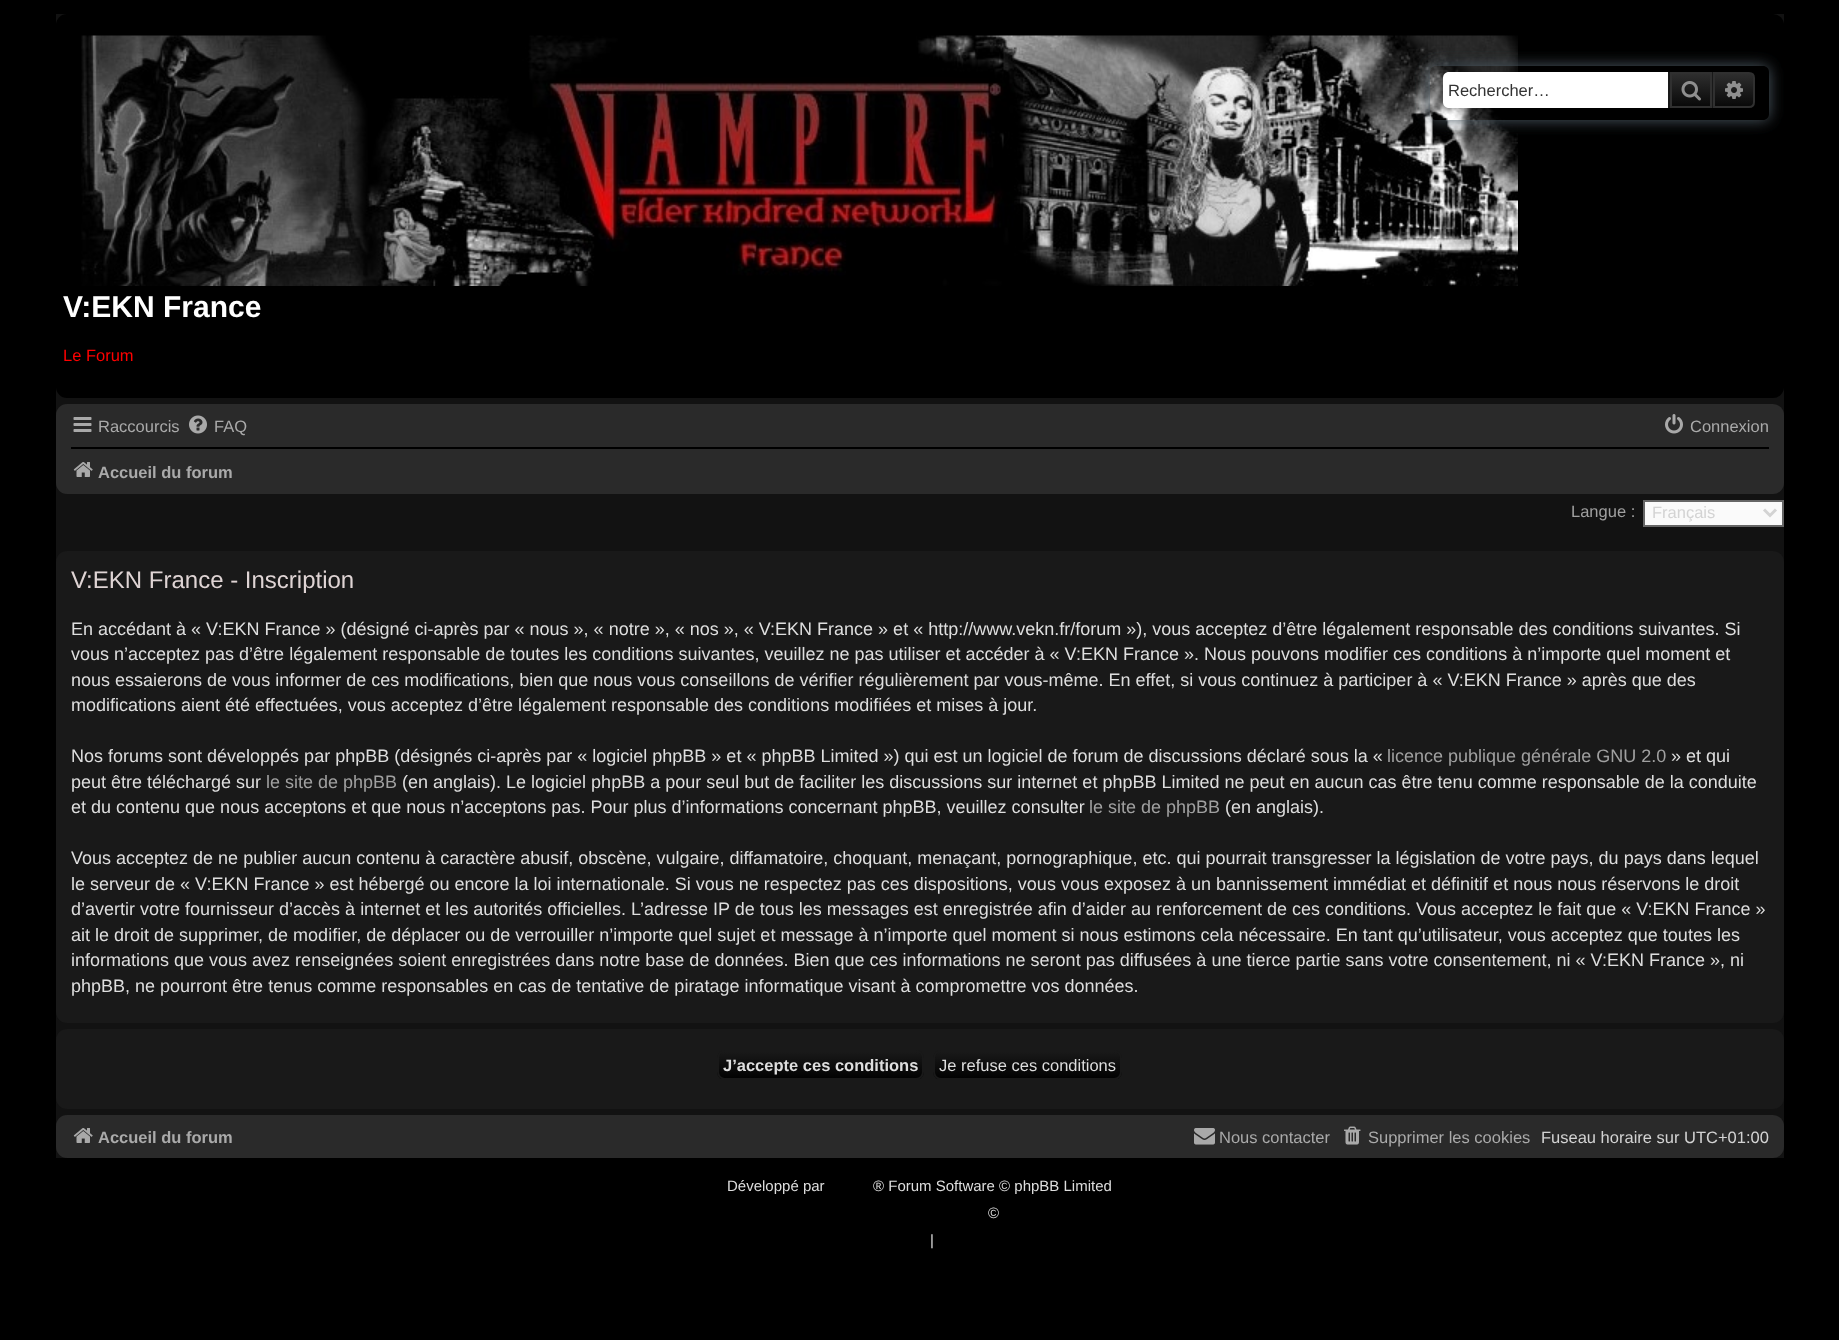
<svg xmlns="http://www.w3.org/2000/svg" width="1839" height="1340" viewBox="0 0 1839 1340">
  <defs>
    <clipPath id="clip1"><path d="M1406 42H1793V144H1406ZM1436 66H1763C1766.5 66 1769 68.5 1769 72V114C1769 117.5 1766.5 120 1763 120H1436C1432.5 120 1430 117.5 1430 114V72C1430 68.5 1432.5 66 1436 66Z" clip-rule="evenodd"/></clipPath>
    <filter id="blur1" x="-50%" y="-200%" width="200%" height="500%"><feGaussianBlur stdDeviation="7.5"/></filter>
    <linearGradient id="g1" gradientUnits="userSpaceOnUse" x1="1691" y1="72" x2="1691" y2="108"><stop offset="0" stop-color="#303030"/><stop offset="1" stop-color="#070707"/></linearGradient>
    <linearGradient id="g2" gradientUnits="userSpaceOnUse" x1="1734" y1="72" x2="1734" y2="108"><stop offset="0" stop-color="#303030"/><stop offset="1" stop-color="#070707"/></linearGradient>
    <clipPath id="clip2"><rect x="717" y="1050" width="207" height="30" rx="8"/></clipPath>
    <linearGradient id="g3" gradientUnits="userSpaceOnUse" x1="821" y1="1052" x2="821" y2="1079"><stop offset="0" stop-color="#191919"/><stop offset="1" stop-color="#010101"/></linearGradient>
    <clipPath id="clip3"><rect x="933" y="1050" width="189" height="30" rx="8"/></clipPath>
    <linearGradient id="g4" gradientUnits="userSpaceOnUse" x1="1028" y1="1052" x2="1028" y2="1079"><stop offset="0" stop-color="#191919"/><stop offset="1" stop-color="#010101"/></linearGradient>
  </defs>
  <rect width="100%" height="100%" fill="#000000"/>
  <rect x="56" y="14" width="1728" height="1144" fill="#121212"/>
  <rect x="56" y="14" width="1728" height="384" rx="11" fill="#000000"/>
  <image x="81" y="35" width="1437" height="251" href="img3.png"/>
  <g clip-path="url(#clip1)">
    <rect x="1430" y="66" width="339" height="54" rx="6" fill="#505c65" filter="url(#blur1)"/>
  </g>
  <path d="M1449 72H1668V108H1449C1445.5 108 1443 105.5 1443 102V78C1443 74.5 1445.5 72 1449 72Z" fill="#ffffff"/>
  <text x="1448" y="96" font-family="Liberation Sans" font-size="16.5" fill="#333333">Rechercher…</text>
  <rect x="1672" y="74" width="38" height="32" fill="url(#g1)"/>
  <rect x="1671" y="73" width="40" height="34" fill="none" stroke="#303030" stroke-width="2"/>
  <rect x="1712" y="72" width="1" height="36" fill="#191919"/>
  <rect x="1668" y="72" width="2" height="36" fill="#191919"/>
  <image x="1681" y="81" width="20" height="20" href="img1.png"/>
  <path d="M1714 73H1749C1752 73 1754 75 1754 78V102C1754 105 1752 107 1749 107H1714Z" fill="url(#g2)" stroke="#303030" stroke-width="2"/>
  <image x="1725" y="81" width="18" height="18" href="img2.png"/>
  <text x="63" y="317" font-family="Liberation Sans" font-size="30" font-weight="bold" fill="#ffffff">V:EKN France</text>
  <text x="63" y="361" font-family="Liberation Sans" font-size="16.5" fill="#ff0000">Le Forum</text>
  <rect x="56" y="404" width="1728" height="90" rx="11" fill="#2a2a2a"/>
  <image x="73" y="417" width="19" height="15" href="img4.png"/>
  <text x="98" y="432" font-family="Liberation Sans" font-size="16.5" fill="#aaaaaa">Raccourcis</text>
  <image x="189" y="415" width="18" height="19" href="img5.png"/>
  <text x="214" y="432" font-family="Liberation Sans" font-size="16.5" fill="#aaaaaa">FAQ</text>
  <image x="1665" y="414" width="18" height="20" href="img6.png"/>
  <text x="1690" y="432" font-family="Liberation Sans" font-size="16.5" fill="#aaaaaa">Connexion</text>
  <rect x="71" y="447" width="1698" height="2" fill="#000000"/>
  <image x="73" y="462" width="20" height="15" href="img7.png"/>
  <text x="98" y="478" font-family="Liberation Sans" font-size="16.5" font-weight="bold" fill="#aaaaaa">Accueil du forum</text>
  <text x="1571" y="517" font-family="Liberation Sans" font-size="16.5" fill="#a0a0a0">Langue :</text>
  <rect x="1644" y="501" width="139" height="25" fill="#fafafa" stroke="#666666" stroke-width="2"/>
  <path d="M1764 509.5L1770 515.5L1776 509.5" fill="none" stroke="#d3d3d3" stroke-width="3"/>
  <text x="1652" y="518" font-family="Liberation Sans" font-size="16.5" fill="#d3d3d3">Français</text>
  <rect x="56" y="551" width="1728" height="472" rx="11" fill="#191919"/>
  <text x="71" y="588" font-family="Liberation Sans" font-size="24" fill="#dfd4d4">V:EKN France - Inscription</text>
  <text x="71" y="635" font-family="Liberation Sans" font-size="18" fill="#dedede">En accédant à « V:EKN France » (désigné ci-après par « nous », « notre », « nos », « V:EKN France » et « http://www.vekn.fr/forum »), vous acceptez d’être légalement responsable des conditions suivantes. Si</text>
  <text x="71" y="660" font-family="Liberation Sans" font-size="18" fill="#dedede">vous n’acceptez pas d’être légalement responsable de toutes les conditions suivantes, veuillez ne pas utiliser et accéder à « V:EKN France ». Nous pouvons modifier ces conditions à n’importe quel moment et</text>
  <text x="71" y="686" font-family="Liberation Sans" font-size="18" fill="#dedede">nous essaierons de vous informer de ces modifications, bien que nous vous conseillons de vérifier régulièrement par vous-même. En effet, si vous continuez à participer à « V:EKN France » après que des</text>
  <text x="71" y="711" font-family="Liberation Sans" font-size="18" fill="#dedede">modifications aient été effectuées, vous acceptez d’être légalement responsable des conditions modifiées et mises à jour.</text>
  <text x="71" y="762" font-family="Liberation Sans" font-size="18" fill="#dedede">Nos forums sont développés par phpBB (désignés ci-après par « logiciel phpBB » et « phpBB Limited ») qui est un logiciel de forum de discussions déclaré sous la «</text>
  <text x="1387" y="762" font-family="Liberation Sans" font-size="18" fill="#a0a0a0">licence publique générale GNU 2.0</text>
  <text x="1671" y="762" font-family="Liberation Sans" font-size="18" fill="#dedede">» et qui</text>
  <text x="71" y="788" font-family="Liberation Sans" font-size="18" fill="#dedede">peut être téléchargé sur</text>
  <text x="266" y="788" font-family="Liberation Sans" font-size="18" fill="#a0a0a0">le site de phpBB</text>
  <text x="402" y="788" font-family="Liberation Sans" font-size="18" fill="#dedede">(en anglais). Le logiciel phpBB a pour seul but de faciliter les discussions sur internet et phpBB Limited ne peut en aucun cas être tenu comme responsable de la conduite</text>
  <text x="71" y="813" font-family="Liberation Sans" font-size="18" fill="#dedede">et du contenu que nous acceptons et que nous n’acceptons pas. Pour plus d’informations concernant phpBB, veuillez consulter</text>
  <text x="1089" y="813" font-family="Liberation Sans" font-size="18" fill="#a0a0a0">le site de phpBB</text>
  <text x="1225" y="813" font-family="Liberation Sans" font-size="18" fill="#dedede">(en anglais).</text>
  <text x="71" y="864" font-family="Liberation Sans" font-size="18" fill="#dedede">Vous acceptez de ne publier aucun contenu à caractère abusif, obscène, vulgaire, diffamatoire, choquant, menaçant, pornographique, etc. qui pourrait transgresser la législation de votre pays, du pays dans lequel</text>
  <text x="71" y="890" font-family="Liberation Sans" font-size="18" fill="#dedede">le serveur de « V:EKN France » est hébergé ou encore la loi internationale. Si vous ne respectez pas ces dispositions, vous vous exposez à un bannissement immédiat et définitif et nous nous réservons le droit</text>
  <text x="71" y="915" font-family="Liberation Sans" font-size="18" fill="#dedede">d’avertir votre fournisseur d’accès à internet et les autorités officielles. L’adresse IP de tous les messages est enregistrée afin d’aider au renforcement de ces conditions. Vous acceptez le fait que « V:EKN France »</text>
  <text x="71" y="941" font-family="Liberation Sans" font-size="18" fill="#dedede">ait le droit de supprimer, de modifier, de déplacer ou de verrouiller n’importe quel sujet et message à n’importe quel moment si nous estimons cela nécessaire. En tant qu’utilisateur, vous acceptez que toutes les</text>
  <text x="71" y="966" font-family="Liberation Sans" font-size="18" fill="#dedede">informations que vous avez renseignées soient enregistrées dans notre base de données. Bien que ces informations ne seront pas diffusées à une tierce partie sans votre consentement, ni « V:EKN France », ni</text>
  <text x="71" y="992" font-family="Liberation Sans" font-size="18" fill="#dedede">phpBB, ne pourront être tenus comme responsables en cas de tentative de piratage informatique visant à compromettre vos données.</text>
  <rect x="56" y="1029" width="1728" height="80" rx="11" fill="#191919"/>
  <g clip-path="url(#clip2)">
    <rect x="717" y="1052" width="207" height="27" fill="url(#g3)"/>
  </g>
  <rect x="718" y="1051" width="205" height="28" rx="7" fill="none" stroke="#191919" stroke-width="2"/>
  <text x="723" y="1071" font-family="Liberation Sans" font-size="16.5" font-weight="bold" fill="#dedede">J’accepte ces conditions</text>
  <g clip-path="url(#clip3)">
    <rect x="933" y="1052" width="189" height="27" fill="url(#g4)"/>
  </g>
  <rect x="934" y="1051" width="187" height="28" rx="7" fill="none" stroke="#191919" stroke-width="2"/>
  <text x="939" y="1071" font-family="Liberation Sans" font-size="16.5" fill="#dedede">Je refuse ces conditions</text>
  <rect x="56" y="1115" width="1728" height="43" rx="11" fill="#2a2a2a"/>
  <image x="73" y="1128" width="20" height="15" href="img7.png"/>
  <text x="98" y="1143" font-family="Liberation Sans" font-size="16.5" font-weight="bold" fill="#aaaaaa">Accueil du forum</text>
  <image x="1194" y="1128" width="21" height="17" href="img8.png"/>
  <text x="1219" y="1143" font-family="Liberation Sans" font-size="16.5" fill="#aaaaaa">Nous contacter</text>
  <image x="1344" y="1126" width="17" height="19" href="img9.png"/>
  <text x="1368" y="1143" font-family="Liberation Sans" font-size="16.5" fill="#aaaaaa">Supprimer les cookies</text>
  <text x="1541" y="1143" font-family="Liberation Sans" font-size="16.5" fill="#d3d3d3">Fuseau horaire sur UTC+01:00</text>
  <text x="727" y="1191" font-family="Liberation Sans" font-size="15" fill="#dedede">Développé par</text>
  <text x="873" y="1191" font-family="Liberation Sans" font-size="15" fill="#dedede">® Forum Software © phpBB Limited</text>
  <text x="988" y="1218" font-family="Liberation Sans" font-size="15" fill="#dedede">©</text>
  <text x="930" y="1245" font-family="Liberation Sans" font-size="15" fill="#dedede">|</text>
</svg>
